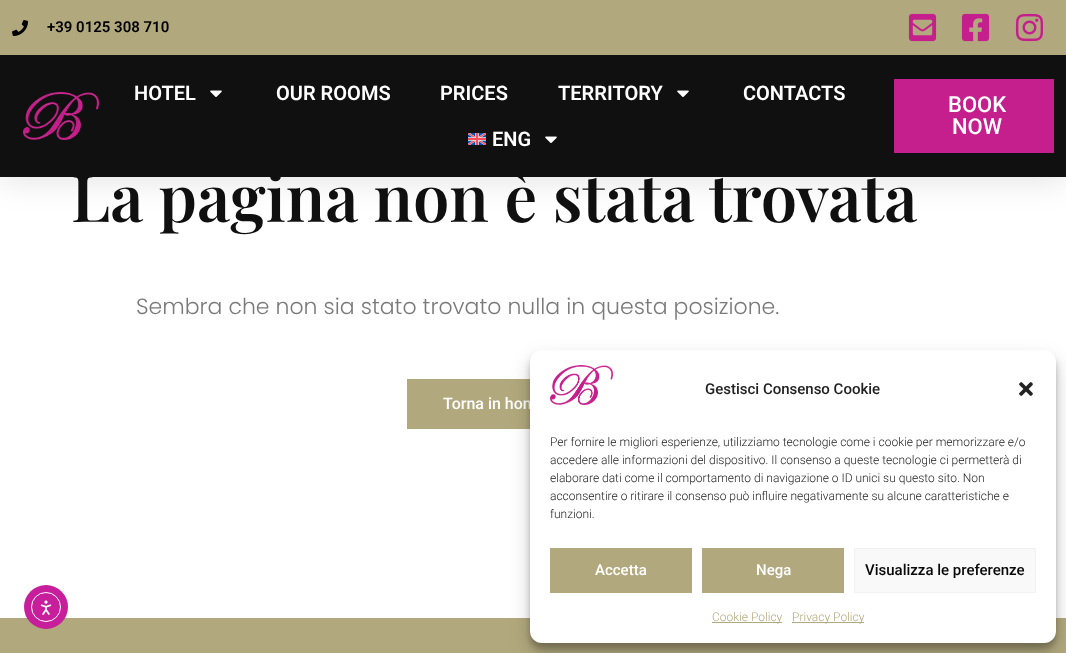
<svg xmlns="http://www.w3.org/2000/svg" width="1066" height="653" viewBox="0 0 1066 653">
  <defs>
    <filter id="blur1" x="-50%" y="-200%" width="200%" height="500%"><feGaussianBlur stdDeviation="15"/></filter>
    <filter id="blur2" x="-50%" y="-200%" width="200%" height="500%"><feGaussianBlur stdDeviation="3"/></filter>
    <filter id="blur3" x="-50%" y="-200%" width="200%" height="500%"><feGaussianBlur stdDeviation="10"/></filter>
  </defs>
  <rect width="100%" height="100%" fill="#ffffff"/>
  <rect x="0" y="5" width="1066" height="177" fill="#000000" fill-opacity="0.1" filter="url(#blur1)"/>
  <rect x="0" y="0" width="1066" height="55" fill="#b1a87d"/>
  <image x="12" y="20" width="16" height="16" href="img1.png"/>
  <text x="47" y="32" font-family="Roboto" font-size="15" font-weight="600" fill="#000000">+39 0125 308 710</text>
  <image x="908" y="13" width="29" height="29" href="img2.png"/>
  <image x="961" y="13" width="29" height="29" href="img3.png"/>
  <image x="1015" y="13" width="29" height="29" href="img4.png"/>
  <rect x="0" y="55" width="1066" height="122" fill="#101010"/>
  <image x="23" y="92" width="77" height="48" href="img5.png"/>
  <text x="134" y="100" font-family="Roboto" font-size="20" font-weight="600" fill="#ffffff">HOTEL</text>
  <image x="210" y="90" width="12" height="7" href="img6.png"/>
  <text x="276" y="100" font-family="Roboto" font-size="20" font-weight="600" fill="#ffffff">OUR ROOMS</text>
  <text x="440" y="100" font-family="Roboto" font-size="20" font-weight="600" fill="#ffffff">PRICES</text>
  <text x="558" y="100" font-family="Roboto" font-size="20" font-weight="600" fill="#ffffff">TERRITORY</text>
  <image x="677" y="90" width="12" height="7" href="img6.png"/>
  <text x="743" y="100" font-family="Roboto" font-size="20" font-weight="600" fill="#ffffff">CONTACTS</text>
  <image x="468" y="133" width="18" height="12" href="img7.png"/>
  <text x="492" y="146" font-family="Roboto" font-size="20" font-weight="600" fill="#ffffff">ENG</text>
  <image x="545" y="136" width="12" height="7" href="img6.png"/>
  <rect x="894" y="79" width="160" height="74" fill="#c41f8c"/>
  <text x="948" y="112" font-family="Roboto" font-size="22" font-weight="500" fill="#ffffff">BOOK</text>
  <text x="952" y="134" font-family="Roboto" font-size="22" font-weight="500" fill="#ffffff">NOW</text>
  <text x="71" y="222" font-family="Playfair Display" font-size="65" font-weight="600" fill="#101010">La pagina non è stata trovata</text>
  <text x="136" y="314" font-family="Poppins" font-size="22" font-weight="300" fill="#7a7a7a">Sembra che non sia stato trovato nulla in questa posizione.</text>
  <rect x="407" y="379" width="123" height="50" fill="#b1a87d"/>
  <text x="443" y="409" font-family="Roboto" font-size="16" font-weight="500" fill="#ffffff">Torna in hom</text>
  <rect x="0" y="618" width="1066" height="35" fill="#b1a87d"/>
  <circle cx="46" cy="607" r="22" fill="#c71f9b"/>
  <circle cx="46" cy="607" r="14.5" fill="none" stroke="#ffffff"/>
  <image x="40" y="600" width="12" height="15" href="img8.png"/>
  <rect x="530" y="356" width="526" height="293" rx="12" fill="#000000" fill-opacity="0.23" filter="url(#blur2)"/>
  <rect x="530" y="360" width="526" height="293" rx="12" fill="#000000" fill-opacity="0.19" filter="url(#blur3)"/>
  <rect x="530" y="350" width="526" height="293" rx="12" fill="#ffffff"/>
  <image x="550" y="365" width="63" height="40" href="img9.png"/>
  <text x="705" y="394" font-family="Roboto" font-size="15" font-weight="500" fill="#222222">Gestisci Consenso Cookie</text>
  <image x="1019" y="382" width="14" height="14" href="img10.png"/>
  <text x="550" y="446" font-family="Roboto" font-size="12" font-weight="300" fill="#222222">Per fornire le migliori esperienze, utilizziamo tecnologie come i cookie per memorizzare e/o</text>
  <text x="550" y="464" font-family="Roboto" font-size="12" font-weight="300" fill="#222222">accedere alle informazioni del dispositivo. Il consenso a queste tecnologie ci permetterà di</text>
  <text x="550" y="482" font-family="Roboto" font-size="12" font-weight="300" fill="#222222">elaborare dati come il comportamento di navigazione o ID unici su questo sito. Non</text>
  <text x="550" y="500" font-family="Roboto" font-size="12" font-weight="300" fill="#222222">acconsentire o ritirare il consenso può influire negativamente su alcune caratteristiche e</text>
  <text x="550" y="518" font-family="Roboto" font-size="12" font-weight="300" fill="#222222">funzioni.</text>
  <rect x="550" y="548" width="142" height="45" fill="#b1a87d"/>
  <text x="595" y="575" font-family="Roboto" font-size="15" font-weight="500" fill="#ffffff">Accetta</text>
  <rect x="702" y="548" width="142" height="45" fill="#b1a87d"/>
  <text x="756" y="575" font-family="Roboto" font-size="15" font-weight="500" fill="#ffffff">Nega</text>
  <rect x="854.5" y="548.5" width="181" height="44" fill="#f9f9f9" stroke="#f2f2f2"/>
  <text x="865" y="575" font-family="Roboto" font-size="15" font-weight="500" fill="#0a0a0a">Visualizza le preferenze</text>
  <rect x="712" y="622" width="70" height="1" fill="#b1a87d"/>
  <text x="712" y="621" font-family="Roboto" font-size="12" font-weight="300" fill="#b1a87d">Cookie Policy</text>
  <rect x="792" y="622" width="72" height="1" fill="#b1a87d"/>
  <text x="792" y="621" font-family="Roboto" font-size="12" font-weight="300" fill="#b1a87d">Privacy Policy</text>
</svg>
